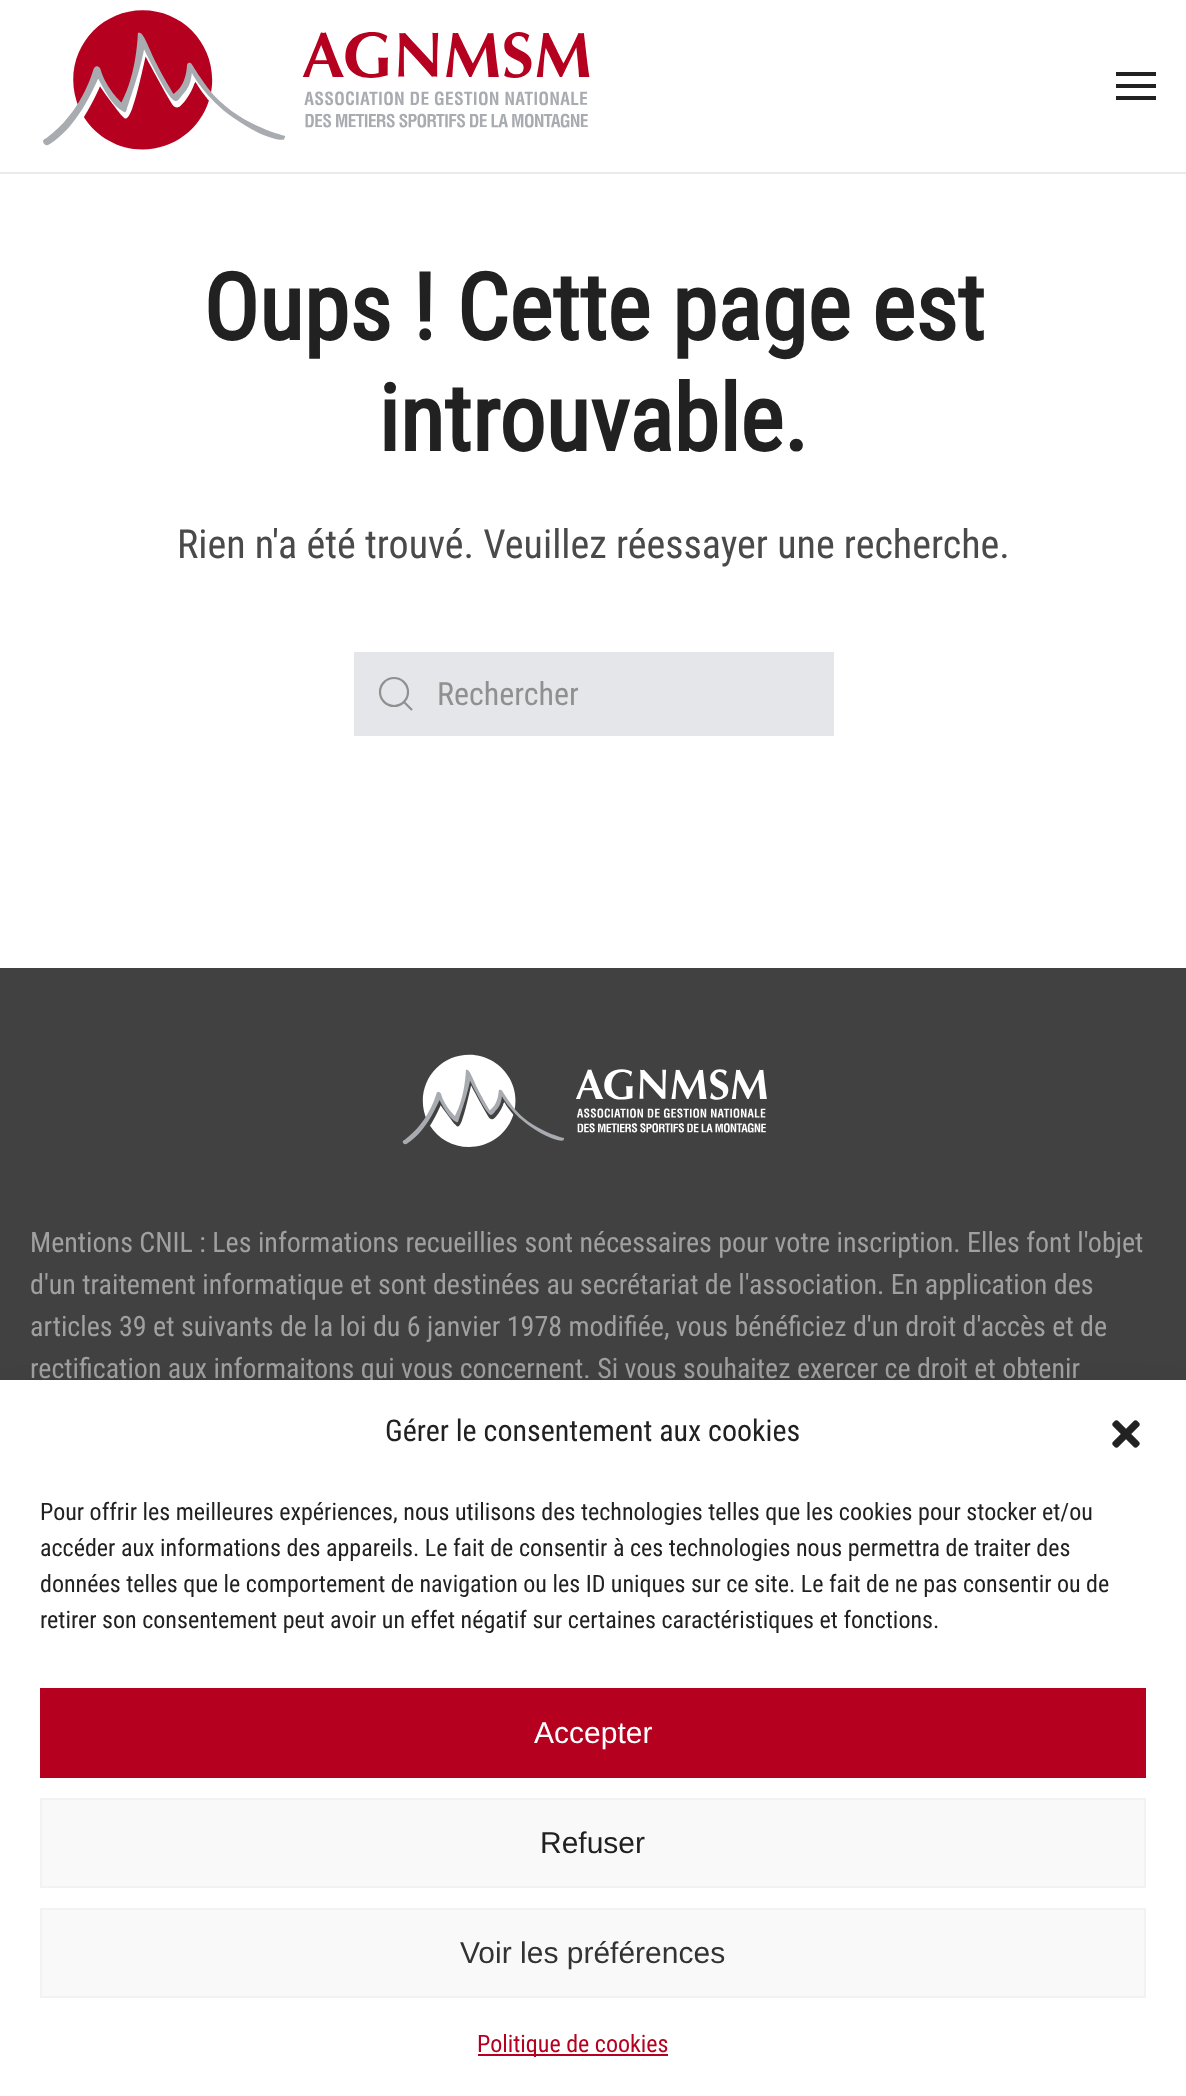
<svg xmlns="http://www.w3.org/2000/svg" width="1186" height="2096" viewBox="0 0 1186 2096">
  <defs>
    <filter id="blur1" x="-50%" y="-200%" width="200%" height="500%"><feGaussianBlur stdDeviation="20"/></filter>
  </defs>
  <rect width="100%" height="100%" fill="#ffffff"/>
  <rect x="0" y="172" width="1186" height="2" fill="#eaeaea"/>
  <image x="43" y="10" width="547" height="140" href="img1.png"/>
  <rect x="1116" y="72" width="40" height="4" fill="#212121"/>
  <rect x="1116" y="84" width="40" height="4" fill="#212121"/>
  <rect x="1116" y="96" width="40" height="4" fill="#212121"/>
  <text x="203" y="340" font-family="Roboto Condensed" font-size="92.5" font-weight="bold" fill="#212121">Oups ! Cette page est</text>
  <text x="378" y="451" font-family="Roboto Condensed" font-size="92.5" font-weight="bold" fill="#212121">introuvable.</text>
  <text x="177" y="558" font-family="Roboto Condensed" font-size="40" fill="#4a4a4a">Rien n'a été trouvé. Veuillez réessayer une recherche.</text>
  <rect x="354" y="652" width="480" height="84" fill="#e4e6e9"/>
  <circle cx="394" cy="692" r="14" fill="none" stroke="#909090" stroke-width="2.2"/>
  <path d="M404 702L412 710Z" fill="none" stroke="#909090" stroke-width="2.2"/>
  <text x="437" y="705" font-family="Roboto Condensed" font-size="32" fill="#909090">Rechercher</text>
  <rect x="0" y="968" width="1186" height="412" fill="#414141"/>
  <image x="402" y="1054" width="365" height="93" href="img2.png"/>
  <text x="30" y="1252" font-family="Roboto Condensed" font-size="28" fill="#a0a0a0">Mentions CNIL : Les informations recueillies sont nécessaires pour votre inscription. Elles font l'objet</text>
  <text x="30" y="1294" font-family="Roboto Condensed" font-size="28" fill="#a0a0a0">d'un traitement informatique et sont destinées au secrétariat de l'association. En application des</text>
  <text x="30" y="1336" font-family="Roboto Condensed" font-size="28" fill="#a0a0a0">articles 39 et suivants de la loi du 6 janvier 1978 modifiée, vous bénéficiez d'un droit d'accès et de</text>
  <text x="30" y="1378" font-family="Roboto Condensed" font-size="28" fill="#a0a0a0">rectification aux informaitons qui vous concernent. Si vous souhaitez exercer ce droit et obtenir</text>
  <rect x="0" y="1400" width="1186" height="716" fill="#000000" fill-opacity="0.19" filter="url(#blur1)"/>
  <rect x="0" y="1380" width="1186" height="716" fill="#ffffff"/>
  <text x="385" y="1441" font-family="Roboto Condensed" font-size="30" fill="#212121">Gérer le consentement aux cookies</text>
  <image x="1112" y="1420" width="28" height="28" href="img3.png"/>
  <text x="40" y="1520" font-family="Roboto Condensed" font-size="24" fill="#212121">Pour offrir les meilleures expériences, nous utilisons des technologies telles que les cookies pour stocker et/ou</text>
  <text x="40" y="1556" font-family="Roboto Condensed" font-size="24" fill="#212121">accéder aux informations des appareils. Le fait de consentir à ces technologies nous permettra de traiter des</text>
  <text x="40" y="1592" font-family="Roboto Condensed" font-size="24" fill="#212121">données telles que le comportement de navigation ou les ID uniques sur ce site. Le fait de ne pas consentir ou de</text>
  <text x="40" y="1628" font-family="Roboto Condensed" font-size="24" fill="#212121">retirer son consentement peut avoir un effet négatif sur certaines caractéristiques et fonctions.</text>
  <rect x="40" y="1688" width="1106" height="90" fill="#b50020"/>
  <text x="534" y="1743" font-family="Liberation Sans" font-size="30" fill="#ffffff">Accepter</text>
  <rect x="41" y="1799" width="1104" height="88" fill="#f9f9f9" stroke="#f2f2f2" stroke-width="2"/>
  <text x="540" y="1853" font-family="Liberation Sans" font-size="30" fill="#212121">Refuser</text>
  <rect x="41" y="1909" width="1104" height="88" fill="#f9f9f9" stroke="#f2f2f2" stroke-width="2"/>
  <text x="460" y="1963" font-family="Liberation Sans" font-size="30" fill="#333333">Voir les préférences</text>
  <rect x="478" y="2054" width="190" height="2" fill="#b50020"/>
  <text x="477" y="2052" font-family="Roboto Condensed" font-size="24" fill="#b50020">Politique de cookies</text>
</svg>
